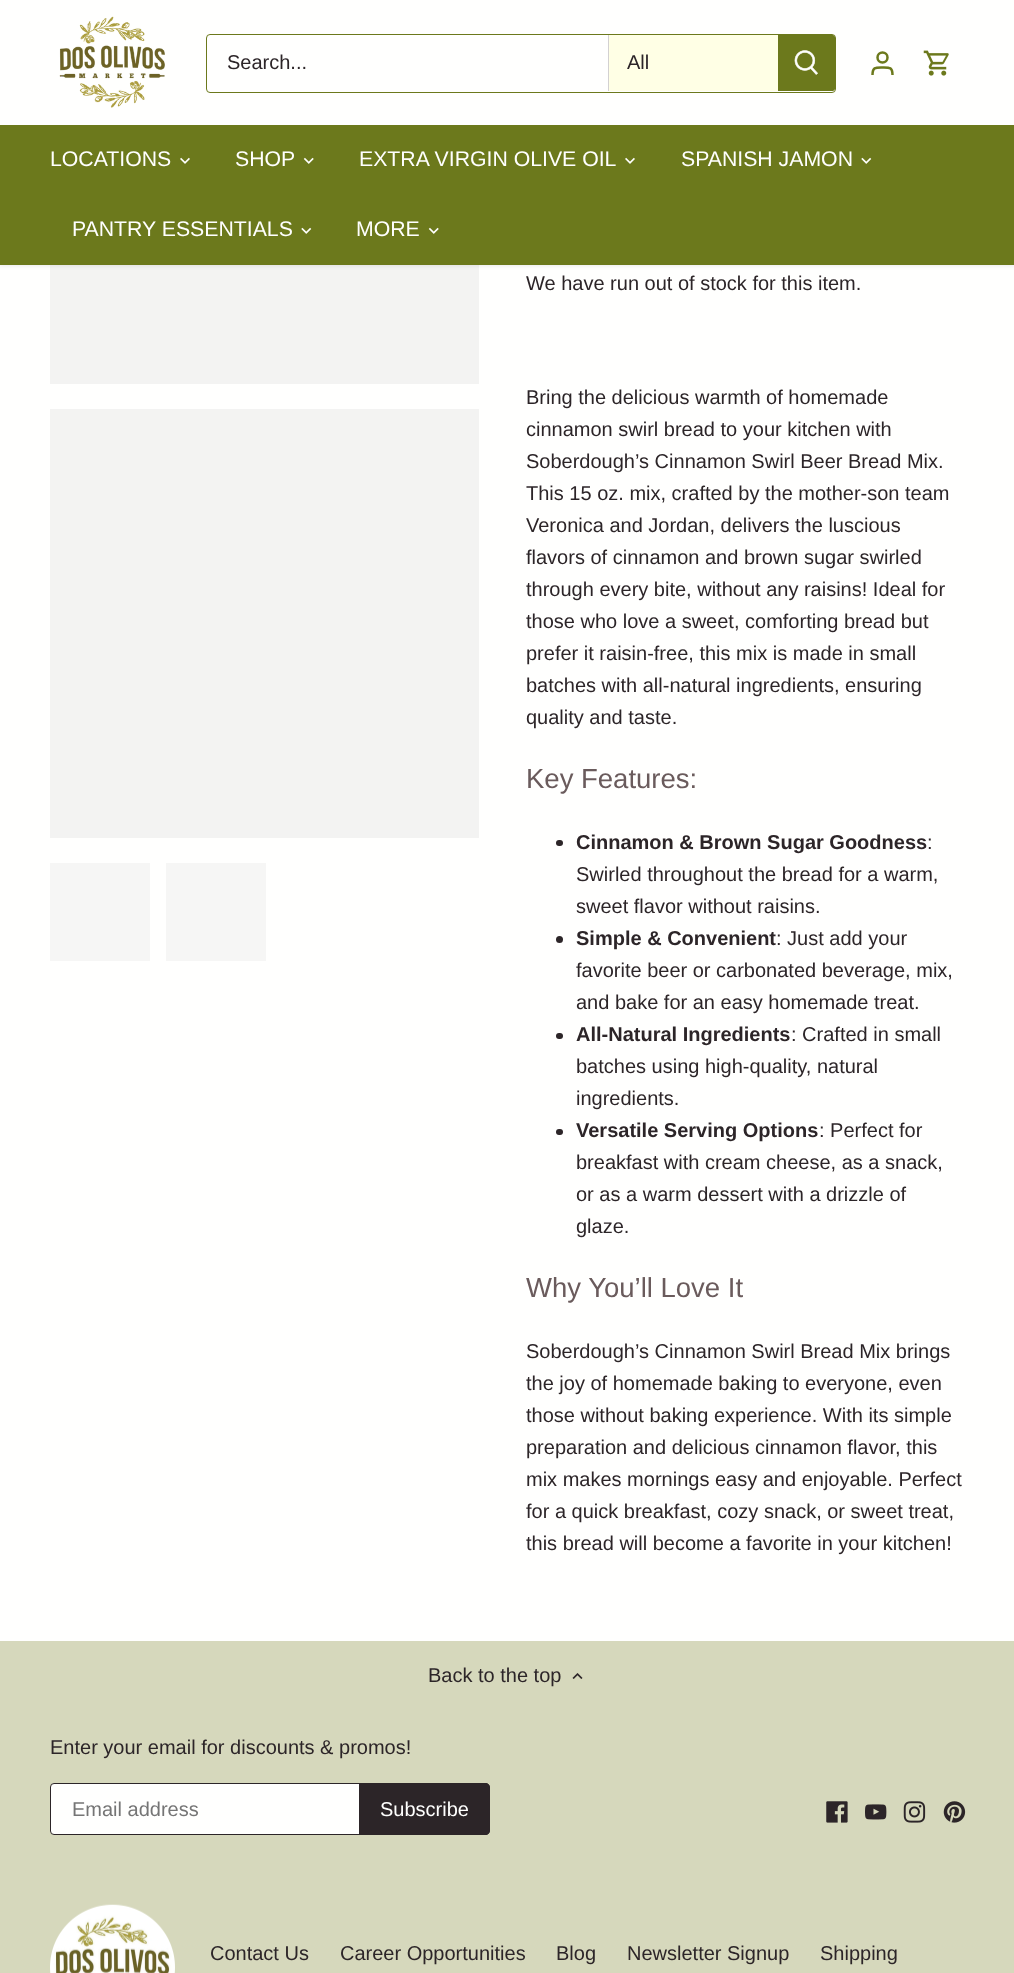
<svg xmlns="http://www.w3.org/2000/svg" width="1014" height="1973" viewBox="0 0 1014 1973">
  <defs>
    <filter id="blur1" x="-50%" y="-200%" width="200%" height="500%"><feGaussianBlur stdDeviation="2"/></filter>
  </defs>
  <rect width="100%" height="100%" fill="#d6d8bc"/>
  <rect x="0" y="265" width="1014" height="1376" fill="#fffffe"/>
  <rect x="50" y="265" width="429" height="119" fill="#f3f3f2"/>
  <rect x="-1" y="-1" width="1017" height="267" fill="#000000" fill-opacity="0.08" filter="url(#blur1)"/>
  <rect x="0" y="125" width="1014" height="140" fill="#6c791c"/>
  <rect x="0" y="0" width="1014" height="125" fill="#fffffe"/>
  <image x="59" y="16" width="106" height="92" href="img1.png"/>
  <rect x="206.5" y="34.5" width="629" height="58" rx="3.5" fill="none" stroke="#6c791c"/>
  <path d="M212 35H608V91H212C210 91 208 89 208 87V39C208 37 210 35 212 35Z" fill="#fffffe"/>
  <text x="227" y="69" font-family="Liberation Sans" font-size="20" fill="#2c2528">Search...</text>
  <rect x="609" y="35" width="169" height="56" fill="#ffffe5"/>
  <rect x="608" y="35" width="1" height="56" fill="#d3d1d1"/>
  <text x="627" y="69" font-family="Liberation Sans" font-size="20" fill="#2c2528">All</text>
  <path d="M778 35H832.5C834 35 835 36 835 37.5V88.5C835 90 834 91 832.5 91H778Z" fill="#6c791c"/>
  <image x="794" y="50" width="24" height="25" href="img2.png"/>
  <circle cx="882.5" cy="57.5" r="5" fill="none" stroke="#6c791c" stroke-width="2.5"/>
  <path d="M892.5 75C892.5 67 889.5 67.5 882.5 67.5C875.5 67.5 872.5 67 872.5 75" fill="none" stroke="#6c791c" stroke-width="2.5"/>
  <image x="923" y="50" width="26" height="26" href="img3.png"/>
  <text x="50" y="166" font-family="Liberation Sans" font-size="21.25" fill="#fffffe">LOCATIONS</text>
  <image x="180" y="157" width="10" height="7" href="img4.png"/>
  <text x="235" y="166" font-family="Liberation Sans" font-size="21.25" fill="#fffffe">SHOP</text>
  <image x="303" y="157" width="11" height="7" href="img5.png"/>
  <text x="359" y="166" font-family="Liberation Sans" font-size="21.25" fill="#fffffe">EXTRA VIRGIN OLIVE OIL</text>
  <image x="625" y="157" width="10" height="7" href="img4.png"/>
  <text x="681" y="166" font-family="Liberation Sans" font-size="21.25" fill="#fffffe">SPANISH JAMON</text>
  <image x="861" y="157" width="11" height="7" href="img6.png"/>
  <text x="72" y="236" font-family="Liberation Sans" font-size="21.25" fill="#fffffe">PANTRY ESSENTIALS</text>
  <image x="301" y="227" width="11" height="7" href="img6.png"/>
  <text x="356" y="236" font-family="Liberation Sans" font-size="21.25" fill="#fffffe">MORE</text>
  <image x="428" y="227" width="11" height="7" href="img5.png"/>
  <rect x="50" y="409" width="429" height="429" fill="#f3f3f2"/>
  <rect x="50" y="863" width="100" height="98" fill="#f6f6f5"/>
  <rect x="166" y="863" width="100" height="98" fill="#f6f6f5"/>
  <text x="526" y="290" font-family="Liberation Sans" font-size="20" fill="#2c2528">We have run out of stock for this item.</text>
  <text x="526" y="404" font-family="Liberation Sans" font-size="20" fill="#2c2528">Bring the delicious warmth of homemade</text>
  <text x="526" y="436" font-family="Liberation Sans" font-size="20" fill="#2c2528">cinnamon swirl bread to your kitchen with</text>
  <text x="526" y="468" font-family="Liberation Sans" font-size="20" fill="#2c2528">Soberdough’s Cinnamon Swirl Beer Bread Mix.</text>
  <text x="526" y="500" font-family="Liberation Sans" font-size="20" fill="#2c2528">This 15 oz. mix, crafted by the mother-son team</text>
  <text x="526" y="532" font-family="Liberation Sans" font-size="20" fill="#2c2528">Veronica and Jordan, delivers the luscious</text>
  <text x="526" y="564" font-family="Liberation Sans" font-size="20" fill="#2c2528">flavors of cinnamon and brown sugar swirled</text>
  <text x="526" y="596" font-family="Liberation Sans" font-size="20" fill="#2c2528">through every bite, without any raisins! Ideal for</text>
  <text x="526" y="628" font-family="Liberation Sans" font-size="20" fill="#2c2528">those who love a sweet, comforting bread but</text>
  <text x="526" y="660" font-family="Liberation Sans" font-size="20" fill="#2c2528">prefer it raisin-free, this mix is made in small</text>
  <text x="526" y="692" font-family="Liberation Sans" font-size="20" fill="#2c2528">batches with all-natural ingredients, ensuring</text>
  <text x="526" y="724" font-family="Liberation Sans" font-size="20" fill="#2c2528">quality and taste.</text>
  <text x="526" y="788" font-family="Liberation Sans" font-size="27.5" fill="#6a5b5c">Key Features:</text>
  <rect x="556" y="840" width="7" height="6" rx="3" fill="#2c2528"/>
  <text x="576" y="849" font-family="Liberation Sans" font-size="20" font-weight="bold" fill="#2c2528">Cinnamon &amp; Brown Sugar Goodness</text>
  <text x="927" y="849" font-family="Liberation Sans" font-size="20" fill="#2c2528">:</text>
  <text x="576" y="881" font-family="Liberation Sans" font-size="20" fill="#2c2528">Swirled throughout the bread for a warm,</text>
  <text x="576" y="913" font-family="Liberation Sans" font-size="20" fill="#2c2528">sweet flavor without raisins.</text>
  <circle cx="559.5" cy="939.5" r="3.5" fill="#2c2528"/>
  <text x="576" y="945" font-family="Liberation Sans" font-size="20" font-weight="bold" fill="#2c2528">Simple &amp; Convenient</text>
  <text x="776" y="945" font-family="Liberation Sans" font-size="20" fill="#2c2528">: Just add your</text>
  <text x="576" y="977" font-family="Liberation Sans" font-size="20" fill="#2c2528">favorite beer or carbonated beverage, mix,</text>
  <text x="576" y="1009" font-family="Liberation Sans" font-size="20" fill="#2c2528">and bake for an easy homemade treat.</text>
  <rect x="556" y="1033" width="7" height="6" rx="3" fill="#2c2528"/>
  <text x="576" y="1041" font-family="Liberation Sans" font-size="20" font-weight="bold" fill="#2c2528">All-Natural Ingredients</text>
  <text x="791" y="1041" font-family="Liberation Sans" font-size="20" fill="#2c2528">: Crafted in small</text>
  <text x="576" y="1073" font-family="Liberation Sans" font-size="20" fill="#2c2528">batches using high-quality, natural</text>
  <text x="576" y="1105" font-family="Liberation Sans" font-size="20" fill="#2c2528">ingredients.</text>
  <rect x="556" y="1129" width="7" height="6" rx="3" fill="#2c2528"/>
  <text x="576" y="1137" font-family="Liberation Sans" font-size="20" font-weight="bold" fill="#2c2528">Versatile Serving Options</text>
  <text x="819" y="1137" font-family="Liberation Sans" font-size="20" fill="#2c2528">: Perfect for</text>
  <text x="576" y="1169" font-family="Liberation Sans" font-size="20" fill="#2c2528">breakfast with cream cheese, as a snack,</text>
  <text x="576" y="1201" font-family="Liberation Sans" font-size="20" fill="#2c2528">or as a warm dessert with a drizzle of</text>
  <text x="576" y="1233" font-family="Liberation Sans" font-size="20" fill="#2c2528">glaze.</text>
  <text x="526" y="1297" font-family="Liberation Sans" font-size="27.5" fill="#6a5b5c">Why You’ll Love It</text>
  <text x="526" y="1358" font-family="Liberation Sans" font-size="20" fill="#2c2528">Soberdough’s Cinnamon Swirl Bread Mix brings</text>
  <text x="526" y="1390" font-family="Liberation Sans" font-size="20" fill="#2c2528">the joy of homemade baking to everyone, even</text>
  <text x="526" y="1422" font-family="Liberation Sans" font-size="20" fill="#2c2528">those without baking experience. With its simple</text>
  <text x="526" y="1454" font-family="Liberation Sans" font-size="20" fill="#2c2528">preparation and delicious cinnamon flavor, this</text>
  <text x="526" y="1486" font-family="Liberation Sans" font-size="20" fill="#2c2528">mix makes mornings easy and enjoyable. Perfect</text>
  <text x="526" y="1518" font-family="Liberation Sans" font-size="20" fill="#2c2528">for a quick breakfast, cozy snack, or sweet treat,</text>
  <text x="526" y="1550" font-family="Liberation Sans" font-size="20" fill="#2c2528">this bread will become a favorite in your kitchen!</text>
  <text x="428" y="1682" font-family="Liberation Sans" font-size="20" fill="#2c2528">Back to the top</text>
  <image x="572" y="1673" width="11" height="6" href="img7.png"/>
  <text x="50" y="1754" font-family="Liberation Sans" font-size="20" fill="#2c2528">Enter your email for discounts &amp; promos!</text>
  <rect x="50.5" y="1783.5" width="438" height="51" rx="3.5" fill="#fffffe" stroke="#2c2528"/>
  <text x="72" y="1816" font-family="Liberation Sans" font-size="20" fill="#757575">Email address</text>
  <path d="M359.5 1783.5H486C488 1783.5 489.5 1785 489.5 1787V1831C489.5 1833 488 1834.5 486 1834.5H359.5Z" fill="#2c2528" stroke="#2c2528"/>
  <text x="380" y="1816" font-family="Liberation Sans" font-size="20" fill="#fffffe">Subscribe</text>
  <image x="826" y="1801" width="22" height="22" href="img8.png"/>
  <image x="865" y="1804" width="22" height="16" href="img9.png"/>
  <image x="903" y="1801" width="23" height="22" href="img10.png"/>
  <image x="943" y="1801" width="23" height="22" href="img11.png"/>
  <image x="50" y="1904" width="125" height="69" href="img12.png"/>
  <text x="210" y="1960" font-family="Liberation Sans" font-size="20" fill="#2c2528">Contact Us</text>
  <text x="340" y="1960" font-family="Liberation Sans" font-size="20" fill="#2c2528">Career Opportunities</text>
  <text x="556" y="1960" font-family="Liberation Sans" font-size="20" fill="#2c2528">Blog</text>
  <text x="627" y="1960" font-family="Liberation Sans" font-size="20" fill="#2c2528">Newsletter Signup</text>
  <text x="820" y="1960" font-family="Liberation Sans" font-size="20" fill="#2c2528">Shipping</text>
</svg>
